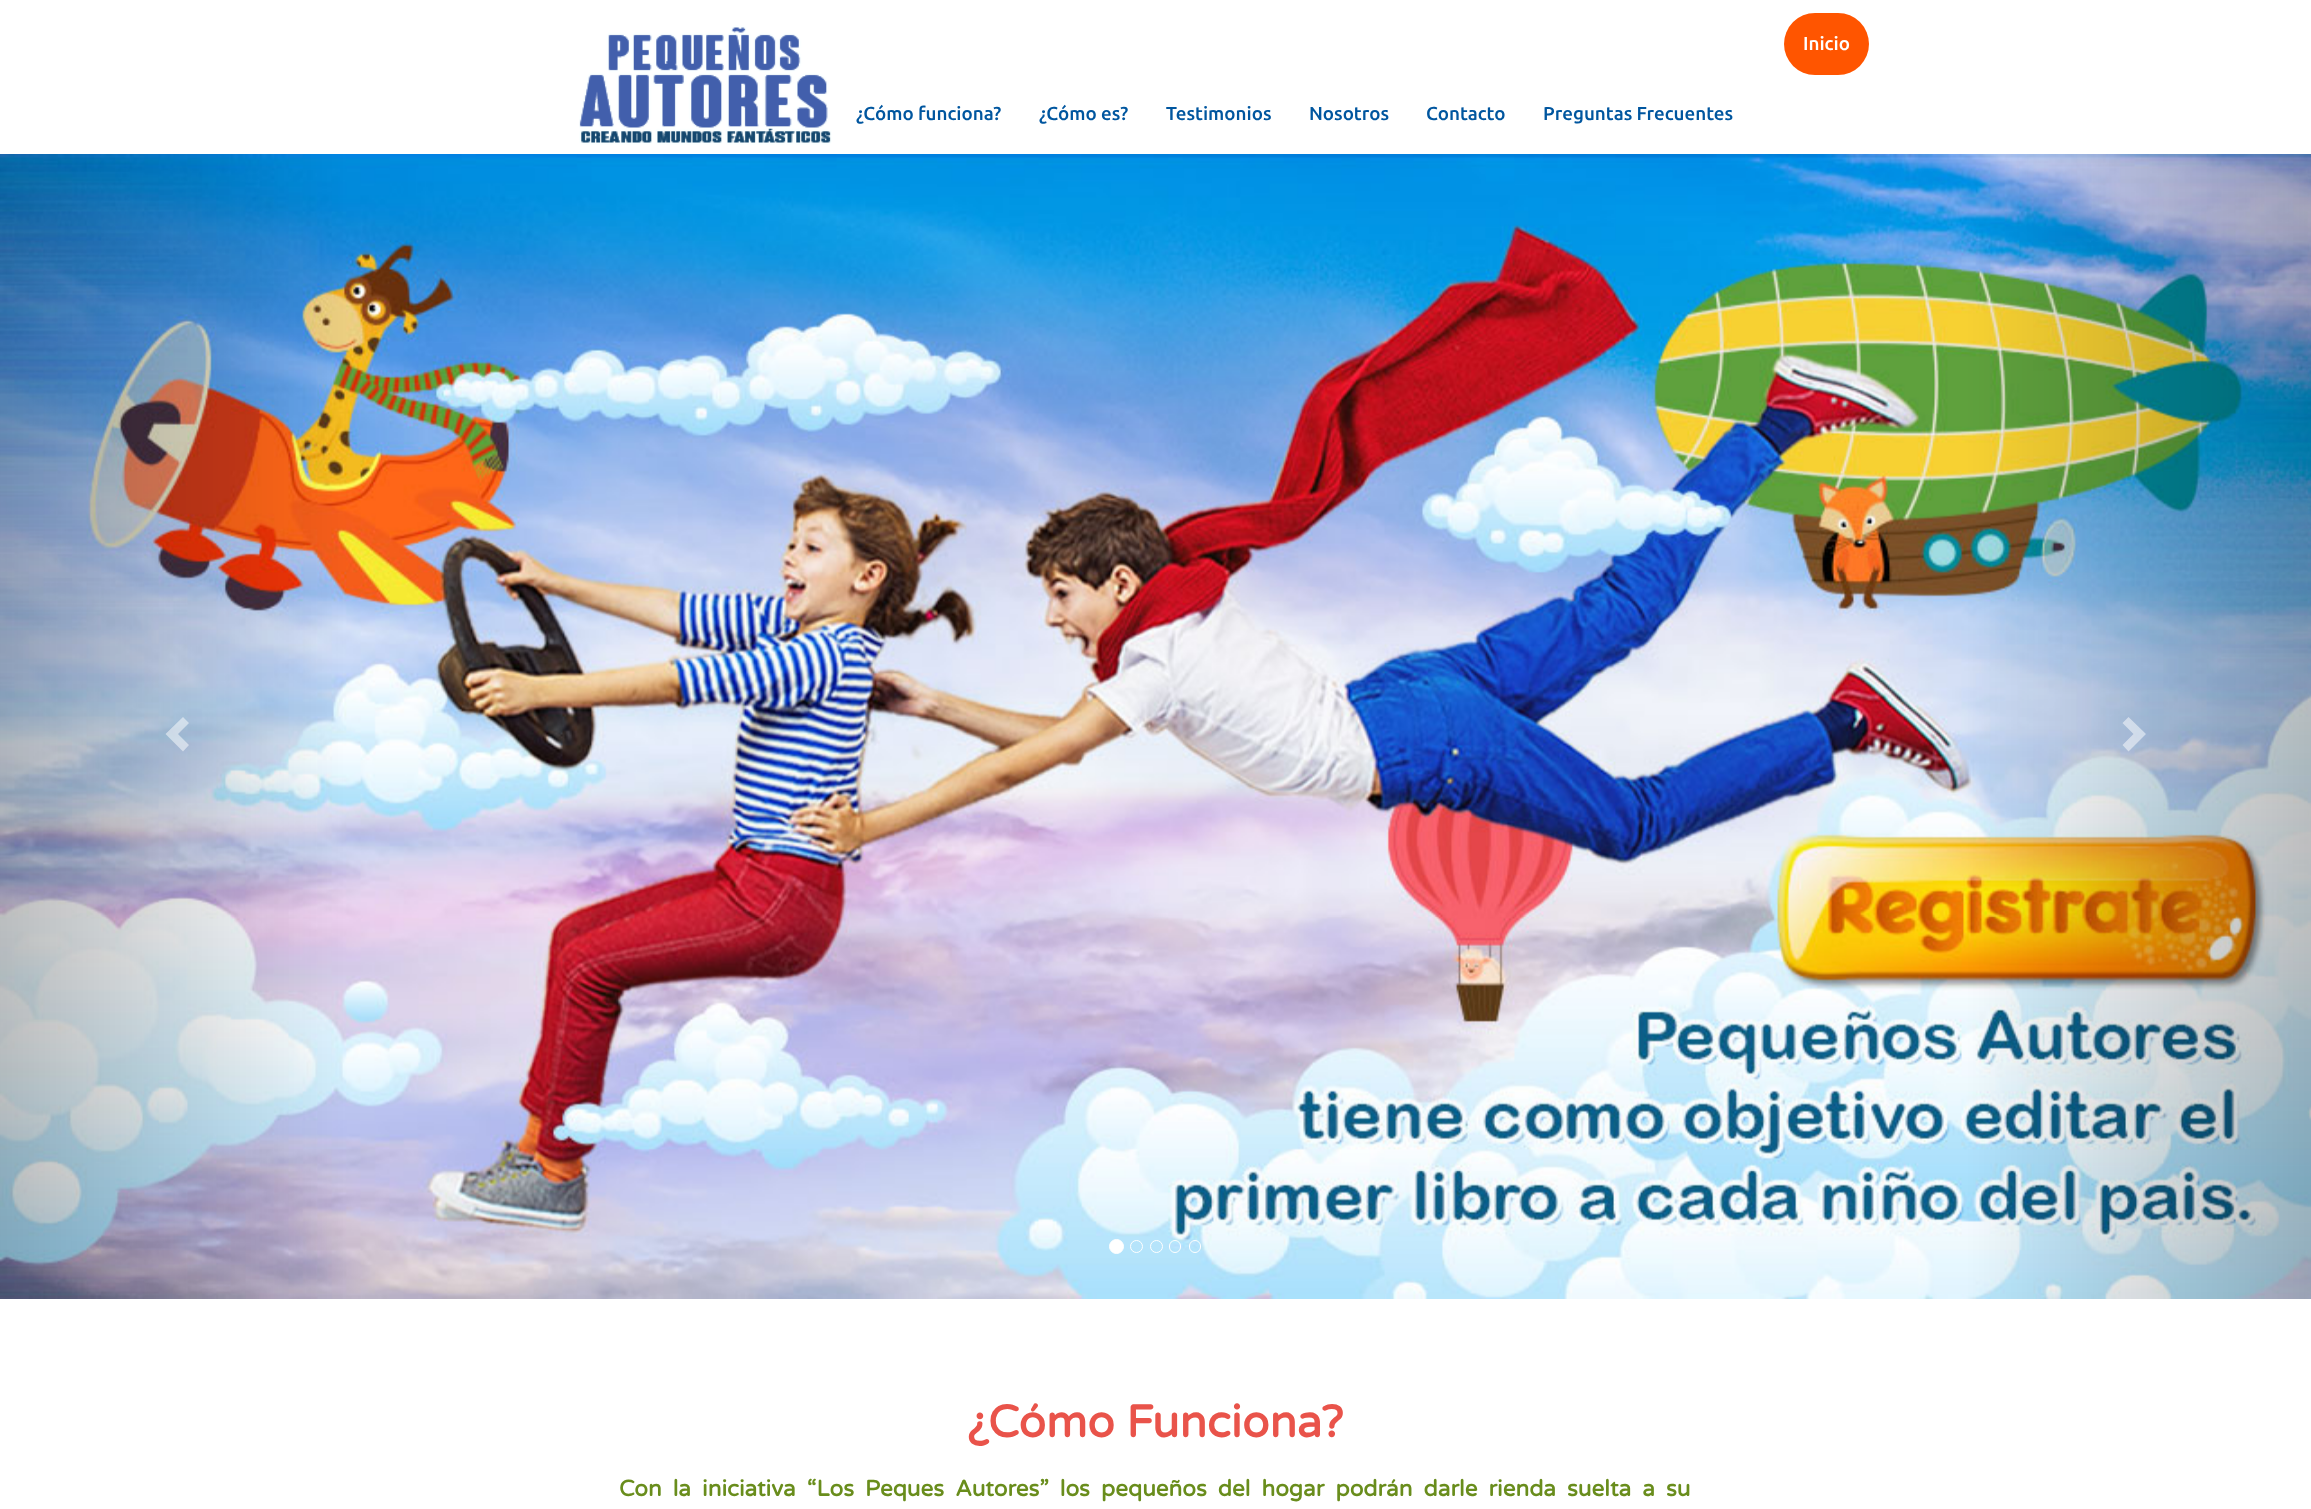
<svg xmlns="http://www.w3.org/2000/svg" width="2311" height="1509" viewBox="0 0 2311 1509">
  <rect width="100%" height="100%" fill="#ffffff"/>
  <image x="579" y="25" width="253" height="120" href="img1.png"/>
  <rect x="1784" y="13" width="85" height="62" rx="31" fill="#ff5500"/>
  <text x="1803" y="50" font-family="Ubuntu" font-size="18.75" font-weight="500" fill="#ffffff">Inicio</text>
  <text x="856" y="120" font-family="Ubuntu" font-size="18.75" font-weight="500" fill="#00569f">¿Cómo funciona?</text>
  <text x="1039" y="120" font-family="Ubuntu" font-size="18.75" font-weight="500" fill="#00569f">¿Cómo es?</text>
  <text x="1166" y="120" font-family="Ubuntu" font-size="18.75" font-weight="500" fill="#00569f">Testimonios</text>
  <text x="1309" y="120" font-family="Ubuntu" font-size="18.75" font-weight="500" fill="#00569f">Nosotros</text>
  <text x="1426" y="120" font-family="Ubuntu" font-size="18.75" font-weight="500" fill="#00569f">Contacto</text>
  <text x="1543" y="120" font-family="Ubuntu" font-size="18.75" font-weight="500" fill="#00569f">Preguntas Frecuentes</text>
  <image x="0" y="154" width="2311" height="1145" href="img2.png"/>
  <path d="M189 723L178 734L189 745L183 751.5L165.5 734L183 717Z" fill="#ffffff" fill-opacity="0.5"/>
  <path d="M2146 734L2128.5 751.5L2122.5 745L2133.5 734L2122.5 723L2128.5 717Z" fill="#ffffff" fill-opacity="0.5"/>
  <circle cx="1116.5" cy="1246.5" r="7" fill="#ffffff" stroke="#ffffff"/>
  <circle cx="1136.5" cy="1246.5" r="6" fill="none" stroke="#ffffff"/>
  <circle cx="1156.5" cy="1246.5" r="6" fill="none" stroke="#ffffff"/>
  <rect x="1169.5" y="1240.5" width="11" height="12" rx="5.5" fill="none" stroke="#ffffff"/>
  <rect x="1189.5" y="1240.5" width="11" height="12" rx="5.5" fill="none" stroke="#ffffff"/>
  <text x="967" y="1437" font-family="Varela Round" font-size="45" font-weight="bold" fill="#e9534a">¿Cómo Funciona?</text>
  <text x="619" y="1496" word-spacing="5.25" font-family="Varela Round" font-size="22.5" font-weight="bold" fill="#698d1c">Con la iniciativa “Los Peques Autores” los pequeños del hogar podrán darle rienda suelta a su</text>
</svg>
